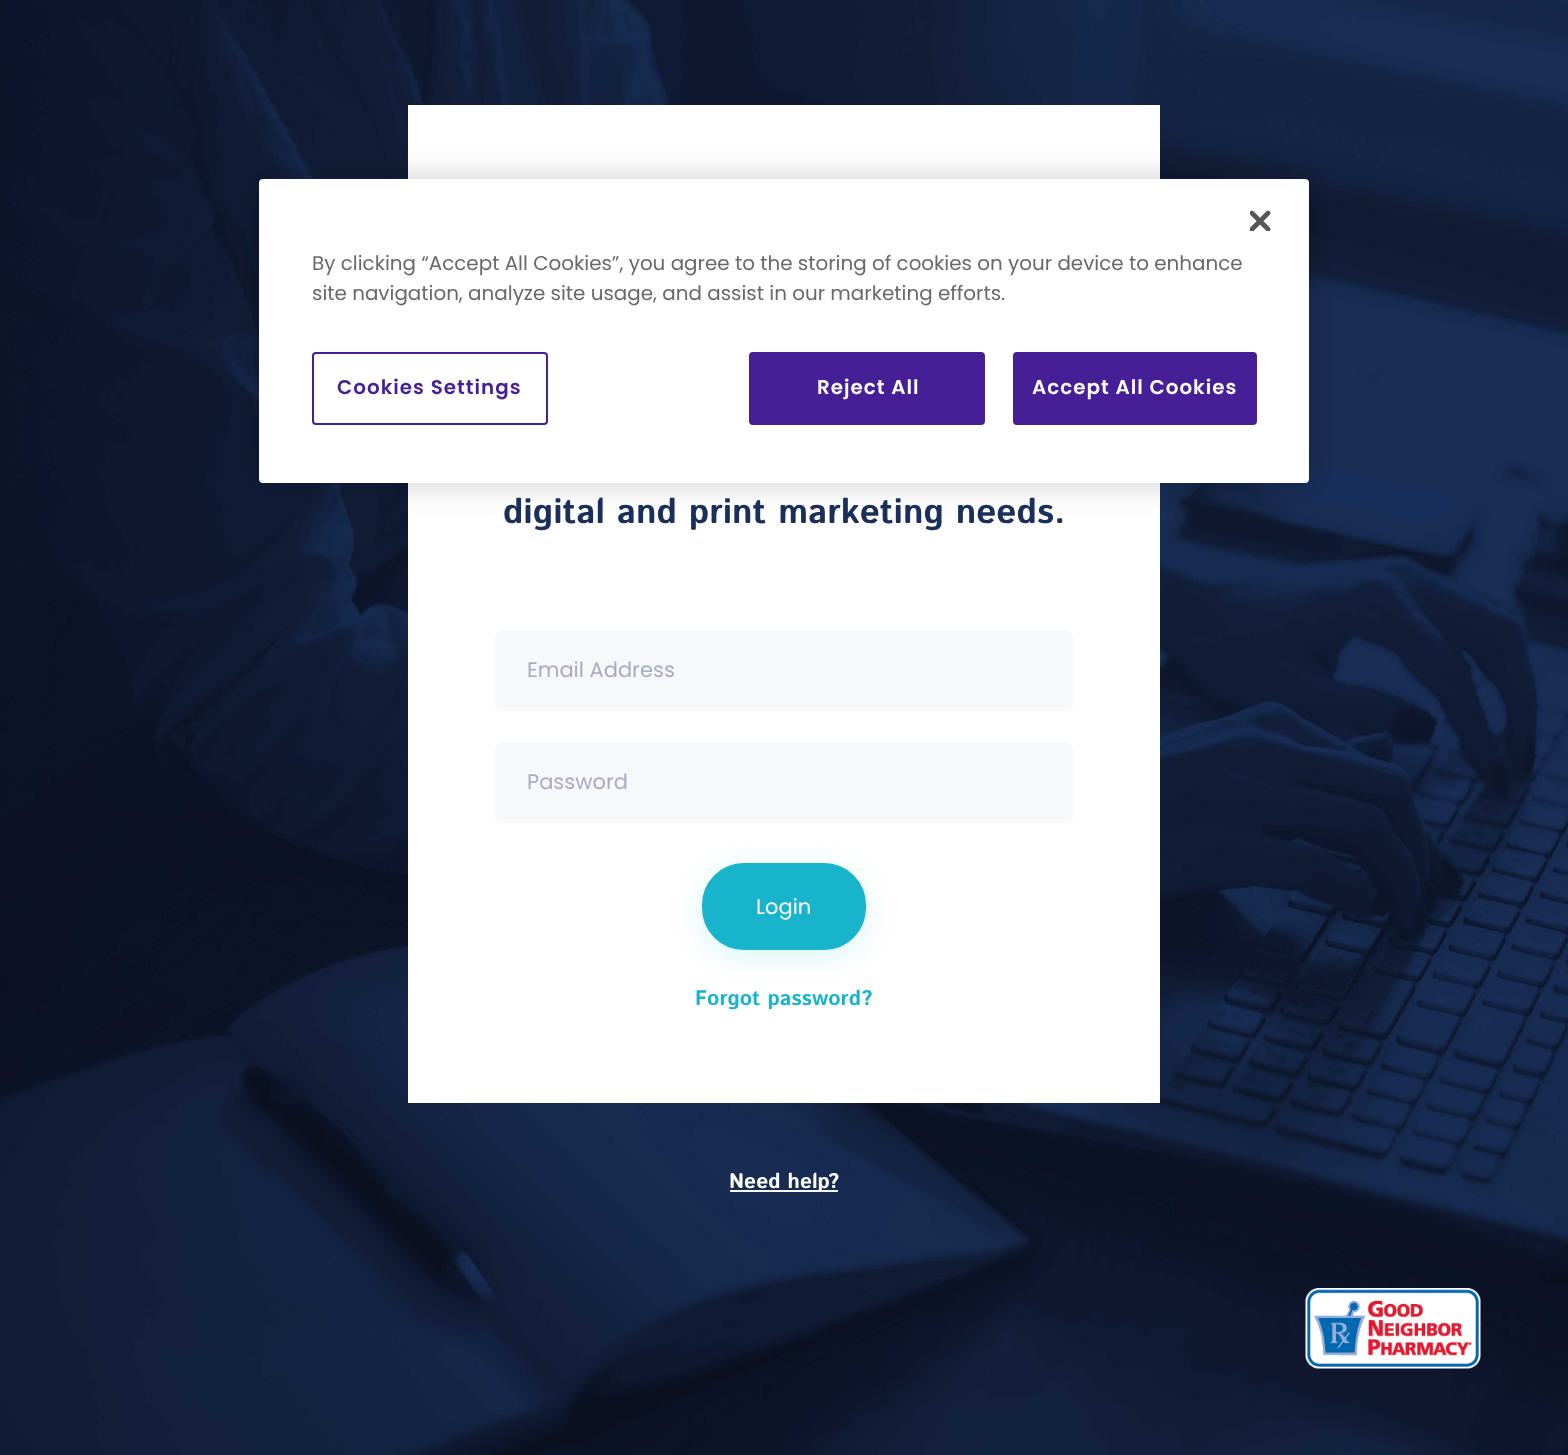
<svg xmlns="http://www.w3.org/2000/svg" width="1568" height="1455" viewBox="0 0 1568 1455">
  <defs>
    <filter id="blur1" x="-50%" y="-200%" width="200%" height="500%"><feGaussianBlur stdDeviation="16"/></filter>
    <filter id="blur2" x="-50%" y="-200%" width="200%" height="500%"><feGaussianBlur stdDeviation="14"/></filter>
  </defs>
  <rect width="100%" height="100%" fill="#ffffff"/>
  <image x="0" y="0" width="1568" height="1455" href="img2.png"/>
  <rect x="408" y="105" width="752" height="998" fill="#ffffff"/>
  <rect x="259" y="179" width="1050" height="304" rx="4" fill="#000000" fill-opacity="0.2" filter="url(#blur1)"/>
  <rect x="259" y="179" width="1050" height="304" rx="4" fill="#ffffff"/>
  <image x="1250" y="210" width="21" height="21" href="img1.png"/>
  <text x="312" y="270" font-family="Poppins" font-size="19.9" fill="#696969">By clicking “Accept All Cookies”, you agree to the storing of cookies on your device to enhance</text>
  <text x="312" y="300" font-family="Poppins" font-size="19.9" fill="#696969">site navigation, analyze site usage, and assist in our marketing efforts.</text>
  <rect x="313" y="353" width="234" height="71" rx="3" fill="none" stroke="#461e96" stroke-width="2"/>
  <text x="337" y="394" font-family="Poppins" font-size="19.9" font-weight="600" letter-spacing="1" fill="#461e96">Cookies Settings</text>
  <rect x="750" y="353" width="234" height="71" rx="3" fill="#461e96" stroke="#461e96" stroke-width="2"/>
  <text x="817" y="394" font-family="Poppins" font-size="19.9" font-weight="600" letter-spacing="1" fill="#ffffff">Reject All</text>
  <rect x="1014" y="353" width="242" height="71" rx="3" fill="#461e96" stroke="#461e96" stroke-width="2"/>
  <text x="1032" y="394" font-family="Poppins" font-size="19.9" font-weight="600" letter-spacing="1" fill="#ffffff">Accept All Cookies</text>
  <text x="503" y="523" font-family="Istok Web" font-size="35" font-weight="bold" fill="#1a2f5a">digital and print marketing needs.</text>
  <rect x="495" y="630" width="578" height="81" rx="7" fill="#f7f8fa"/>
  <text x="527" y="677" font-family="Poppins" font-size="21" fill="#a7abc3">Email Address</text>
  <rect x="495" y="742" width="578" height="81" rx="7" fill="#f7f8fa"/>
  <text x="527" y="789" font-family="Poppins" font-size="21" fill="#a7abc3">Password</text>
  <rect x="702" y="870" width="164" height="87" rx="42" fill="#17b4cc" fill-opacity="0.15" filter="url(#blur2)"/>
  <rect x="703" y="864" width="162" height="85" rx="41" fill="#17b4cc" stroke="#17b4cc" stroke-width="2"/>
  <text x="756" y="914" font-family="Poppins" font-size="21" fill="#ffffff">Login</text>
  <text x="695" y="1005" font-family="Istok Web" font-size="21" font-weight="bold" fill="#17b4cc">Forgot password?</text>
  <rect x="730" y="1190" width="108" height="2" fill="#ffffff"/>
  <text x="729" y="1188" font-family="Istok Web" font-size="21" font-weight="bold" fill="#ffffff">Need help?</text>
  <image x="1305" y="1288" width="176" height="81" href="img3.png"/>
</svg>
